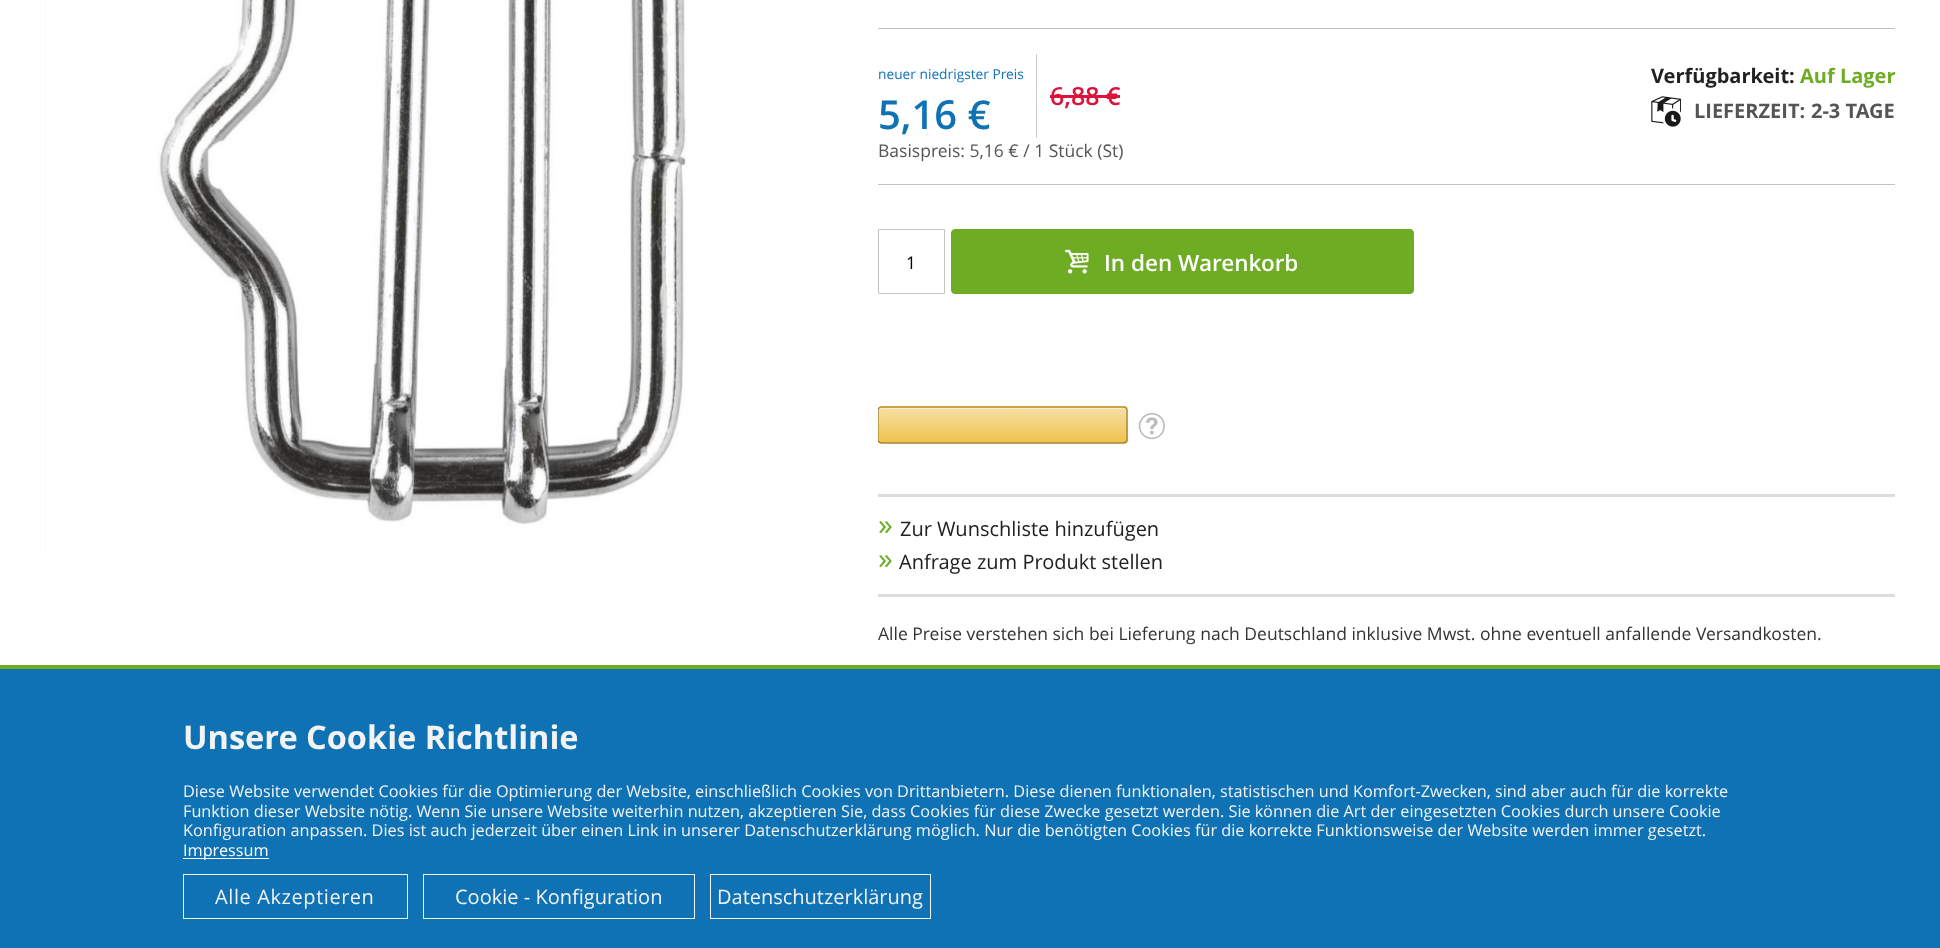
<svg xmlns="http://www.w3.org/2000/svg" width="1940" height="948" viewBox="0 0 1940 948">
  <defs>
    <clipPath id="clip1"><rect x="878" y="406" width="250" height="38" rx="4"/></clipPath>
    <linearGradient id="g1" gradientUnits="userSpaceOnUse" x1="1003" y1="373" x2="1003" y2="408"><stop offset="0" stop-color="#f7dfa5"/><stop offset="1" stop-color="#f0c14b"/></linearGradient>
    <linearGradient id="g2" gradientUnits="userSpaceOnUse" x1="1003" y1="408" x2="1003" y2="443"><stop offset="0" stop-color="#f7dfa5"/><stop offset="1" stop-color="#f0c14b"/></linearGradient>
    <linearGradient id="g3" gradientUnits="userSpaceOnUse" x1="1003" y1="443" x2="1003" y2="478"><stop offset="0" stop-color="#f7dfa5"/><stop offset="1" stop-color="#f0c14b"/></linearGradient>
    <clipPath id="clip2"><rect x="878" y="406" width="1017" height="88"/></clipPath>
  </defs>
  <rect width="100%" height="100%" fill="#ffffff"/>
  <rect x="45" y="0" width="776" height="556" fill="#f3f3f3"/>
  <image x="45" y="0" width="776" height="556" href="img1.png"/>
  <rect x="878" y="28" width="1017" height="1" fill="#c1c1c1"/>
  <rect x="878" y="184" width="1017" height="1" fill="#c1c1c1"/>
  <text x="878" y="79" font-family="Open Sans" font-size="13.75" fill="#0e72b5">neuer niedrigster Preis</text>
  <text x="878" y="129" font-family="Open Sans" font-size="40" font-weight="600" fill="#0e72b5">5,16 €</text>
  <rect x="1036" y="54" width="1" height="84" fill="#cccccc"/>
  <text x="1050" y="105" font-family="Open Sans" font-size="25" font-weight="600" fill="#dc143c">6,88 €</text>
  <rect x="1050" y="95" width="70" height="3" fill="#dc143c"/>
  <text x="1651" y="83" font-family="Open Sans" font-size="20" font-weight="bold" fill="#212121">Verfügbarkeit:</text>
  <text x="1800" y="83" font-family="Open Sans" font-size="20" font-weight="bold" fill="#6eac24">Auf Lager</text>
  <image x="1651" y="96" width="30" height="31" href="img2.png"/>
  <text x="1694" y="118" font-family="Open Sans" font-size="20" font-weight="bold" fill="#555555">LIEFERZEIT:</text>
  <text x="1811" y="118" font-family="Open Sans" font-size="20" font-weight="bold" fill="#555555">2-3 TAGE</text>
  <text x="878" y="157" font-family="Open Sans" font-size="17.5" fill="#555555">Basispreis: 5,16 € / 1 Stück (St)</text>
  <rect x="878.5" y="229.5" width="66" height="64" rx="0.5" fill="none" stroke="#c2c2c2"/>
  <text x="906" y="269" font-family="Open Sans" font-size="17.5" fill="#000000">1</text>
  <rect x="951.5" y="229.5" width="462" height="64" rx="3.5" fill="#6eac24" stroke="#6eac24"/>
  <image x="1065" y="249" width="24" height="25" href="img3.png"/>
  <text x="1104" y="271" font-family="Open Sans" font-size="22.5" font-weight="600" fill="#ffffff">In den Warenkorb</text>
  <g clip-path="url(#clip1)">
    <rect x="878" y="406" width="250" height="2" fill="url(#g1)"/>
    <rect x="878" y="408" width="250" height="35" fill="url(#g2)"/>
    <rect x="878" y="443" width="250" height="1" fill="url(#g3)"/>
  </g>
  <path d="M881 409H1124C1125 409 1126 410 1126 411C1126 409 1125 408 1124 408H882L879 409V411C879 410 880 409 881 409Z" fill="#ffffff" fill-opacity="0.4"/>
  <path d="M879 408L881 407H1124L1126 408" fill="none" stroke="#a88734" stroke-width="1.2"/>
  <path d="M1126 408C1126.5 408.5 1127 409 1127 410V440C1127 441 1126.5 441.5 1126 442" fill="none" stroke="#9c7e31" stroke-width="1.2"/>
  <path d="M1126 442L1124 443H881L879 442" fill="none" stroke="#846a29" stroke-width="1.2"/>
  <g clip-path="url(#clip2)">
    <path d="M879 442C878.5 441.5 878 441 878 440V410C878 409 878.5 408.5 879 408" fill="none" stroke="#9c7e31" stroke-width="1.2"/>
  </g>
  <image x="1138" y="413" width="27" height="27" href="img4.png"/>
  <rect x="878" y="494" width="1017" height="3" fill="#dddddd"/>
  <text x="878" y="535" font-family="Open Sans" font-size="30" letter-spacing="1" fill="#6eac24">»</text>
  <text x="900" y="536" font-family="Open Sans" font-size="20" fill="#212121">Zur Wunschliste hinzufügen</text>
  <text x="878" y="569" font-family="Open Sans" font-size="30" fill="#6eac24">»</text>
  <text x="899" y="569" font-family="Open Sans" font-size="20" fill="#212121">Anfrage zum Produkt stellen</text>
  <rect x="878" y="594" width="1017" height="3" fill="#dddddd"/>
  <text x="878" y="640" font-family="Open Sans" font-size="17.5" fill="#333333">Alle Preise verstehen sich bei Lieferung nach Deutschland inklusive Mwst. ohne eventuell anfallende Versandkosten.</text>
  <rect x="0" y="669" width="1940" height="279" fill="#0e72b5"/>
  <rect x="0" y="665" width="1940" height="4" fill="#6eac24"/>
  <text x="183" y="749" font-family="Open Sans" font-size="32.5" font-weight="bold" fill="#f3f3f3">Unsere Cookie Richtlinie</text>
  <text x="183" y="797" font-family="Open Sans" font-size="16.25" fill="#f3f3f3">Diese Website verwendet Cookies für die Optimierung der Website, einschließlich Cookies von Drittanbietern. Diese dienen funktionalen, statistischen und Komfort-Zwecken, sind aber auch für die korrekte</text>
  <text x="183" y="817" font-family="Open Sans" font-size="16.25" fill="#f3f3f3">Funktion dieser Website nötig. Wenn Sie unsere Website weiterhin nutzen, akzeptieren Sie, dass Cookies für diese Zwecke gesetzt werden. Sie können die Art der eingesetzten Cookies durch unsere Cookie</text>
  <text x="183" y="836" font-family="Open Sans" font-size="16.25" fill="#f3f3f3">Konfiguration anpassen. Dies ist auch jederzeit über einen Link in unserer Datenschutzerklärung möglich. Nur die benötigten Cookies für die korrekte Funktionsweise der Website werden immer gesetzt.</text>
  <rect x="183" y="858" width="86" height="1" fill="#ffffff"/>
  <text x="183" y="856" font-family="Open Sans" font-size="16.25" fill="#ffffff">Impressum</text>
  <rect x="183.5" y="874.5" width="224" height="44" fill="none" stroke="#f3f3f3"/>
  <text x="215" y="904" font-family="Open Sans" font-size="20" letter-spacing="0.6" fill="#f3f3f3">Alle Akzeptieren</text>
  <rect x="423.5" y="874.5" width="271" height="44" fill="none" stroke="#f3f3f3"/>
  <text x="455" y="904" font-family="Open Sans" font-size="20" fill="#f3f3f3">Cookie - Konfiguration</text>
  <rect x="710.5" y="874.5" width="220" height="44" fill="none" stroke="#f3f3f3"/>
  <text x="717" y="904" font-family="Open Sans" font-size="20" fill="#f3f3f3">Datenschutzerklärung</text>
</svg>
